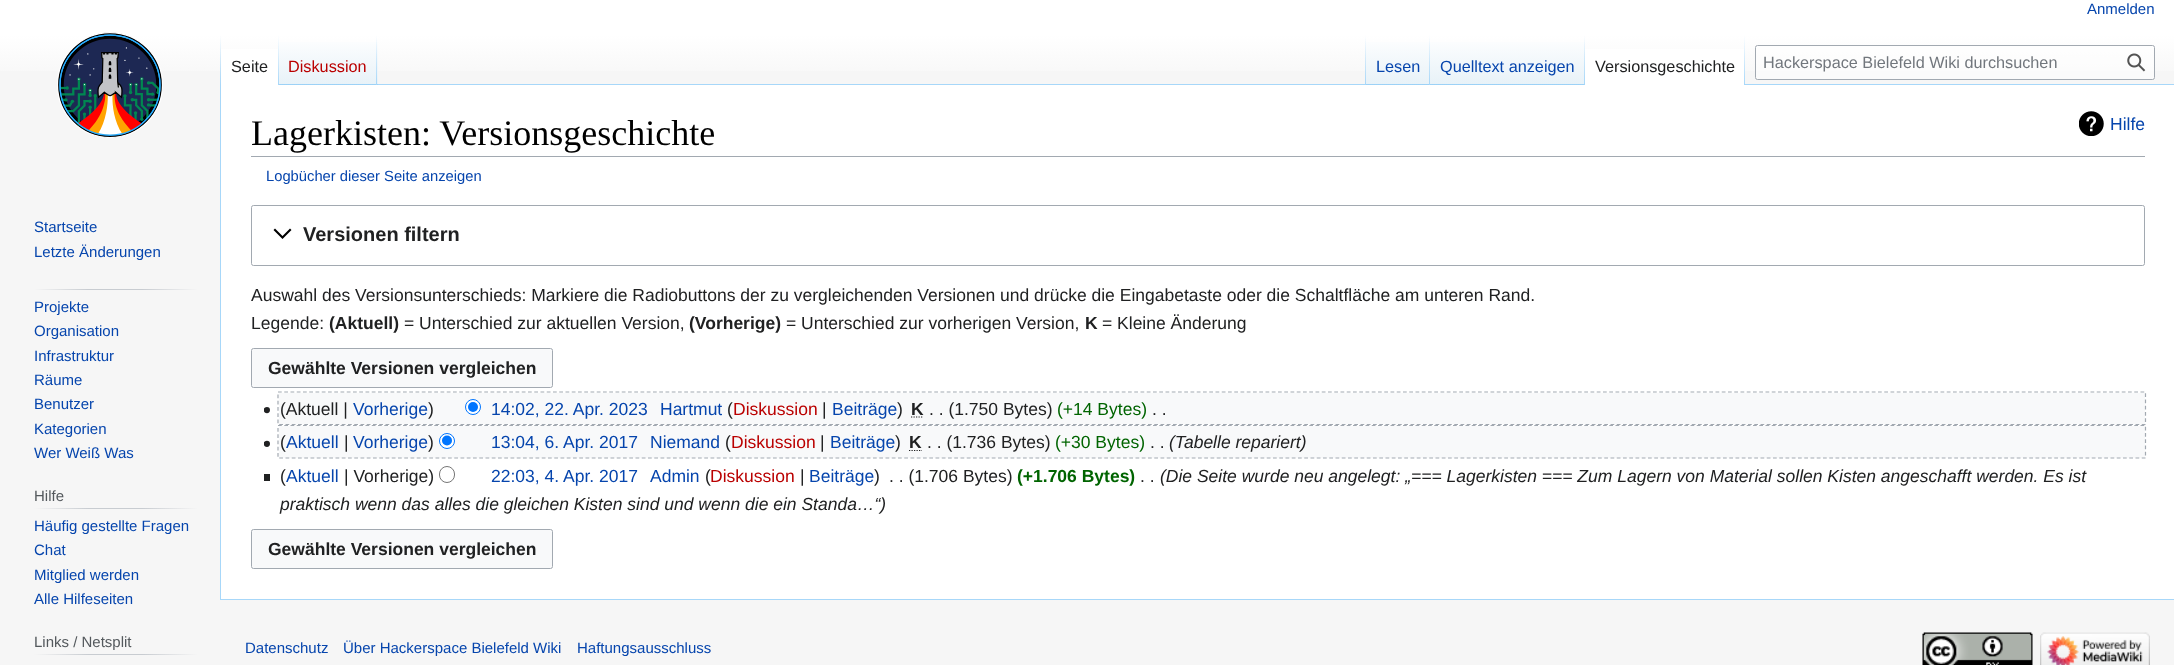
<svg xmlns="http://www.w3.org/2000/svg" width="2174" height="665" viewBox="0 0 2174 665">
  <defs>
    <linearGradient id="g1" gradientUnits="userSpaceOnUse" x1="1088" y1="-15" x2="1088" y2="85"><stop offset="0.5" stop-color="#ffffff"/><stop offset="1" stop-color="#f6f6f6"/></linearGradient>
    <linearGradient id="g2" gradientUnits="userSpaceOnUse" x1="221" y1="35" x2="221" y2="85"><stop offset="0" stop-color="#a7d7f9" stop-opacity="0"/><stop offset="1" stop-color="#a7d7f9"/></linearGradient>
    <linearGradient id="g3" gradientUnits="userSpaceOnUse" x1="278" y1="35" x2="278" y2="85"><stop offset="0" stop-color="#ffffff"/><stop offset="1" stop-color="#a7d7f9"/></linearGradient>
    <linearGradient id="g4" gradientUnits="userSpaceOnUse" x1="328" y1="85" x2="328" y2="35"><stop offset="0" stop-color="#77c1f6"/><stop offset="0.03" stop-color="#e8f2f8"/><stop offset="1" stop-color="#ffffff"/></linearGradient>
    <linearGradient id="g5" gradientUnits="userSpaceOnUse" x1="377" y1="35" x2="377" y2="85"><stop offset="0" stop-color="#a7d7f9" stop-opacity="0"/><stop offset="1" stop-color="#a7d7f9"/></linearGradient>
    <linearGradient id="g6" gradientUnits="userSpaceOnUse" x1="1366" y1="35" x2="1366" y2="85"><stop offset="0" stop-color="#a7d7f9" stop-opacity="0"/><stop offset="1" stop-color="#a7d7f9"/></linearGradient>
    <linearGradient id="g7" gradientUnits="userSpaceOnUse" x1="1398" y1="85" x2="1398" y2="35"><stop offset="0" stop-color="#77c1f6"/><stop offset="0.03" stop-color="#e8f2f8"/><stop offset="1" stop-color="#ffffff"/></linearGradient>
    <linearGradient id="g8" gradientUnits="userSpaceOnUse" x1="1429" y1="35" x2="1429" y2="85"><stop offset="0" stop-color="#a7d7f9" stop-opacity="0"/><stop offset="1" stop-color="#a7d7f9"/></linearGradient>
    <linearGradient id="g9" gradientUnits="userSpaceOnUse" x1="1508" y1="85" x2="1508" y2="35"><stop offset="0" stop-color="#77c1f6"/><stop offset="0.03" stop-color="#e8f2f8"/><stop offset="1" stop-color="#ffffff"/></linearGradient>
    <linearGradient id="g10" gradientUnits="userSpaceOnUse" x1="1584" y1="35" x2="1584" y2="85"><stop offset="0" stop-color="#a7d7f9" stop-opacity="0"/><stop offset="1" stop-color="#a7d7f9"/></linearGradient>
    <linearGradient id="g11" gradientUnits="userSpaceOnUse" x1="1744" y1="35" x2="1744" y2="85"><stop offset="0" stop-color="#ffffff"/><stop offset="1" stop-color="#a7d7f9"/></linearGradient>
    <linearGradient id="g12" gradientUnits="userSpaceOnUse" x1="34" y1="289" x2="198" y2="289"><stop offset="0" stop-color="#f6f6f6"/><stop offset="0.33" stop-color="#c8ccd1"/><stop offset="0.66" stop-color="#c8ccd1"/><stop offset="1" stop-color="#f6f6f6"/></linearGradient>
    <linearGradient id="g13" gradientUnits="userSpaceOnUse" x1="34" y1="508" x2="198" y2="508"><stop offset="0" stop-color="#f6f6f6"/><stop offset="0.33" stop-color="#c8ccd1"/><stop offset="0.66" stop-color="#c8ccd1"/><stop offset="1" stop-color="#f6f6f6"/></linearGradient>
    <linearGradient id="g14" gradientUnits="userSpaceOnUse" x1="34" y1="654" x2="198" y2="654"><stop offset="0" stop-color="#f6f6f6"/><stop offset="0.33" stop-color="#c8ccd1"/><stop offset="0.66" stop-color="#c8ccd1"/><stop offset="1" stop-color="#f6f6f6"/></linearGradient>
  </defs>
  <rect width="100%" height="100%" fill="#f6f6f6"/>
  <rect x="0" y="0" width="2174" height="71" fill="url(#g1)"/>
  <text x="2087" y="14" font-family="Liberation Sans" font-size="15" fill="#0645ad">Anmelden</text>
  <rect x="220" y="599" width="1954" height="1" fill="#a7d7f9"/>
  <rect x="220" y="84" width="1" height="516" fill="#a7d7f9"/>
  <rect x="220" y="35" width="1" height="50" fill="url(#g2)"/>
  <rect x="221" y="49" width="57" height="36" fill="#ffffff"/>
  <rect x="278" y="35" width="1" height="50" fill="url(#g3)"/>
  <text x="231" y="72" font-family="Liberation Sans" font-size="16.25" fill="#202122">Seite</text>
  <rect x="279" y="42" width="99" height="43" fill="url(#g4)"/>
  <rect x="376" y="35" width="1" height="50" fill="url(#g5)"/>
  <text x="288" y="72" font-family="Liberation Sans" font-size="16.25" fill="#ba0000">Diskussion</text>
  <rect x="378" y="84" width="1796" height="1" fill="#a7d7f9"/>
  <rect x="1365" y="35" width="1" height="50" fill="url(#g6)"/>
  <rect x="1366" y="42" width="64" height="43" fill="url(#g7)"/>
  <rect x="1429" y="35" width="1" height="50" fill="url(#g8)"/>
  <text x="1376" y="72" font-family="Liberation Sans" font-size="16.25" fill="#0645ad">Lesen</text>
  <rect x="1430" y="42" width="155" height="43" fill="url(#g9)"/>
  <rect x="1584" y="35" width="1" height="50" fill="url(#g10)"/>
  <text x="1440" y="72" font-family="Liberation Sans" font-size="16.25" fill="#0645ad">Quelltext anzeigen</text>
  <rect x="1585" y="49" width="159" height="36" fill="#ffffff"/>
  <rect x="1744" y="35" width="1" height="50" fill="url(#g11)"/>
  <text x="1595" y="72" font-family="Liberation Sans" font-size="16.25" fill="#202122">Versionsgeschichte</text>
  <rect x="1755.5" y="45.5" width="399" height="34" rx="2" fill="#ffffff" fill-opacity="0.5" stroke="#a2a9b1"/>
  <text x="1763" y="68" font-family="Liberation Sans" font-size="16.25" fill="#72777d">Hackerspace Bielefeld Wiki durchsuchen</text>
  <image x="2127" y="53" width="19" height="19" href="img1.png"/>
  <image x="57" y="32" width="106" height="106" href="img2.png"/>
  <text x="34" y="232" font-family="Liberation Sans" font-size="15" fill="#0645ad">Startseite</text>
  <text x="34" y="257" font-family="Liberation Sans" font-size="15" fill="#0645ad">Letzte Änderungen</text>
  <rect x="34" y="289" width="164" height="1" fill="url(#g12)"/>
  <text x="34" y="312" font-family="Liberation Sans" font-size="15" fill="#0645ad">Projekte</text>
  <text x="34" y="336" font-family="Liberation Sans" font-size="15" fill="#0645ad">Organisation</text>
  <text x="34" y="361" font-family="Liberation Sans" font-size="15" fill="#0645ad">Infrastruktur</text>
  <text x="34" y="385" font-family="Liberation Sans" font-size="15" fill="#0645ad">Räume</text>
  <text x="34" y="409" font-family="Liberation Sans" font-size="15" fill="#0645ad">Benutzer</text>
  <text x="34" y="434" font-family="Liberation Sans" font-size="15" fill="#0645ad">Kategorien</text>
  <text x="34" y="458" font-family="Liberation Sans" font-size="15" fill="#0645ad">Wer Weiß Was</text>
  <rect x="34" y="508" width="164" height="1" fill="url(#g13)"/>
  <text x="34" y="501" font-family="Liberation Sans" font-size="15" fill="#54595d">Hilfe</text>
  <text x="34" y="531" font-family="Liberation Sans" font-size="15" fill="#0645ad">Häufig gestellte Fragen</text>
  <text x="34" y="555" font-family="Liberation Sans" font-size="15" fill="#0645ad">Chat</text>
  <text x="34" y="580" font-family="Liberation Sans" font-size="15" fill="#0645ad">Mitglied werden</text>
  <text x="34" y="604" font-family="Liberation Sans" font-size="15" fill="#0645ad">Alle Hilfeseiten</text>
  <rect x="34" y="654" width="164" height="1" fill="url(#g14)"/>
  <text x="34" y="647" font-family="Liberation Sans" font-size="15" fill="#54595d">Links / Netsplit</text>
  <rect x="221" y="85" width="1953" height="514" fill="#ffffff"/>
  <rect x="251" y="156" width="1894" height="1" fill="#a2a9b1"/>
  <text x="251" y="145" font-family="Liberation Serif" font-size="36" fill="#000000">Lagerkisten: Versionsgeschichte</text>
  <image x="2079" y="111" width="25" height="25" href="img3.png"/>
  <text x="2110" y="130" font-family="Liberation Sans" font-size="17.5" fill="#0645ad">Hilfe</text>
  <text x="266" y="181" font-family="Liberation Sans" font-size="14.75" fill="#0645ad">Logbücher dieser Seite anzeigen</text>
  <rect x="251.5" y="205.5" width="1893" height="60" rx="2" fill="none" stroke="#a2a9b1"/>
  <path d="M290 228.5L282.5 236L275 228.5L273.5 230L282.5 239L291.5 230Z" fill="#000000"/>
  <text x="303" y="241" font-family="Liberation Sans" font-size="20" font-weight="bold" fill="#202122">Versionen filtern</text>
  <text x="251" y="301" font-family="Liberation Sans" font-size="17.5" fill="#202122">Auswahl des Versionsunterschieds: Markiere die Radiobuttons der zu vergleichenden Versionen und drücke die Eingabetaste oder die Schaltfläche am unteren Rand.</text>
  <text x="251" y="329" font-family="Liberation Sans" font-size="17.5" fill="#202122">Legende:</text>
  <text x="329" y="329" font-family="Liberation Sans" font-size="17.5" font-weight="bold" fill="#202122">(Aktuell)</text>
  <text x="404" y="329" font-family="Liberation Sans" font-size="17.5" fill="#202122">= Unterschied zur aktuellen Version,</text>
  <text x="689" y="329" font-family="Liberation Sans" font-size="17.5" font-weight="bold" fill="#202122">(Vorherige)</text>
  <text x="786" y="329" font-family="Liberation Sans" font-size="17.5" fill="#202122">= Unterschied zur vorherigen Version,</text>
  <text x="1085" y="329" font-family="Liberation Sans" font-size="17.5" font-weight="bold" fill="#202122">K</text>
  <text x="1102" y="329" font-family="Liberation Sans" font-size="17.5" fill="#202122">= Kleine Änderung</text>
  <rect x="251.5" y="348.5" width="301" height="39" rx="2" fill="#f8f9fa" stroke="#a2a9b1"/>
  <text x="268" y="374" font-family="Liberation Sans" font-size="17.5" font-weight="bold" fill="#202122">Gewählte Versionen vergleichen</text>
  <rect x="279" y="393" width="1866" height="31" fill="#f8f9fa"/>
  <image x="264" y="407" width="6" height="7" href="img4.png"/>
  <text x="280" y="415" font-family="Liberation Sans" font-size="17.5" fill="#202122">(Aktuell |</text>
  <text x="353" y="415" font-family="Liberation Sans" font-size="17.5" fill="#0645ad">Vorherige</text>
  <text x="428" y="415" font-family="Liberation Sans" font-size="17.5" fill="#202122">)</text>
  <circle cx="473" cy="407" r="7.5" fill="#ffffff" stroke="#0075ff"/>
  <circle cx="473" cy="407" r="5" fill="#0075ff"/>
  <text x="491" y="415" font-family="Liberation Sans" font-size="17.5" fill="#0645ad">14:02, 22. Apr. 2023</text>
  <text x="660" y="415" font-family="Liberation Sans" font-size="17.5" fill="#0645ad">Hartmut</text>
  <text x="727" y="415" font-family="Liberation Sans" font-size="17.5" fill="#202122">(</text>
  <text x="733" y="415" font-family="Liberation Sans" font-size="17.5" fill="#ba0000">Diskussion</text>
  <text x="822" y="415" font-family="Liberation Sans" font-size="17.5" fill="#202122">|</text>
  <text x="832" y="415" font-family="Liberation Sans" font-size="17.5" fill="#0645ad">Beiträge</text>
  <text x="897" y="415" font-family="Liberation Sans" font-size="17.5" fill="#202122">)</text>
  <text x="911" y="415" font-family="Liberation Sans" font-size="17.5" font-weight="bold" fill="#202122">K</text>
  <path d="M911 417H923.5" fill="none" stroke="#202122" stroke-width="1.2" stroke-dasharray="1.25 1.25"/>
  <text x="929" y="415" font-family="Liberation Sans" font-size="17.5" fill="#202122">. . (1.750 Bytes)</text>
  <text x="1057" y="415" font-family="Liberation Sans" font-size="17.5" fill="#006400">(+14 Bytes)</text>
  <text x="1152" y="415" font-family="Liberation Sans" font-size="17.5" fill="#202122">. .</text>
  <path d="M278 392H2145.5V424.5H278Z" fill="none" stroke="#a2a9b1" stroke-width="1.2" stroke-dasharray="3.75 2.5"/>
  <rect x="279" y="426" width="1866" height="32" fill="#f8f9fa"/>
  <image x="264" y="440" width="6" height="7" href="img5.png"/>
  <text x="280" y="448" font-family="Liberation Sans" font-size="17.5" fill="#202122">(</text>
  <text x="286" y="448" font-family="Liberation Sans" font-size="17.5" fill="#0645ad">Aktuell</text>
  <text x="344" y="448" font-family="Liberation Sans" font-size="17.5" fill="#202122">|</text>
  <text x="353" y="448" font-family="Liberation Sans" font-size="17.5" fill="#0645ad">Vorherige</text>
  <text x="428" y="448" font-family="Liberation Sans" font-size="17.5" fill="#202122">)</text>
  <circle cx="447" cy="441" r="7.5" fill="#ffffff" stroke="#0075ff"/>
  <circle cx="447" cy="440.5" r="5" fill="#0075ff"/>
  <text x="491" y="448" font-family="Liberation Sans" font-size="17.5" fill="#0645ad">13:04, 6. Apr. 2017</text>
  <text x="650" y="448" font-family="Liberation Sans" font-size="17.5" fill="#0645ad">Niemand</text>
  <text x="725" y="448" font-family="Liberation Sans" font-size="17.5" fill="#202122">(</text>
  <text x="731" y="448" font-family="Liberation Sans" font-size="17.5" fill="#ba0000">Diskussion</text>
  <text x="820" y="448" font-family="Liberation Sans" font-size="17.5" fill="#202122">|</text>
  <text x="830" y="448" font-family="Liberation Sans" font-size="17.5" fill="#0645ad">Beiträge</text>
  <text x="895" y="448" font-family="Liberation Sans" font-size="17.5" fill="#202122">)</text>
  <text x="909" y="448" font-family="Liberation Sans" font-size="17.5" font-weight="bold" fill="#202122">K</text>
  <path d="M909 450.5H922" fill="none" stroke="#202122" stroke-width="1.2" stroke-dasharray="1.25 1.25"/>
  <text x="927" y="448" font-family="Liberation Sans" font-size="17.5" fill="#202122">. . (1.736 Bytes)</text>
  <text x="1055" y="448" font-family="Liberation Sans" font-size="17.5" fill="#006400">(+30 Bytes)</text>
  <text x="1150" y="448" font-family="Liberation Sans" font-size="17.5" fill="#202122">. .</text>
  <text x="1169" y="448" font-family="Liberation Sans" font-size="17.5" font-style="italic" fill="#202122">(Tabelle repariert)</text>
  <path d="M278 425.5H2145.5V458H278Z" fill="none" stroke="#a2a9b1" stroke-width="1.2" stroke-dasharray="3.75 2.5"/>
  <rect x="264" y="474" width="6" height="7" fill="#202122"/>
  <text x="280" y="482" font-family="Liberation Sans" font-size="17.5" fill="#202122">(</text>
  <text x="286" y="482" font-family="Liberation Sans" font-size="17.5" fill="#0645ad">Aktuell</text>
  <text x="344" y="482" font-family="Liberation Sans" font-size="17.5" fill="#202122">| Vorherige)</text>
  <rect x="439.5" y="466.5" width="15" height="16" rx="7.5" fill="none" stroke="#767676"/>
  <text x="491" y="482" font-family="Liberation Sans" font-size="17.5" fill="#0645ad">22:03, 4. Apr. 2017</text>
  <text x="650" y="482" font-family="Liberation Sans" font-size="17.5" fill="#0645ad">Admin</text>
  <text x="705" y="482" font-family="Liberation Sans" font-size="17.5" fill="#202122">(</text>
  <text x="710" y="482" font-family="Liberation Sans" font-size="17.5" fill="#ba0000">Diskussion</text>
  <text x="800" y="482" font-family="Liberation Sans" font-size="17.5" fill="#202122">|</text>
  <text x="809" y="482" font-family="Liberation Sans" font-size="17.5" fill="#0645ad">Beiträge</text>
  <text x="874" y="482" font-family="Liberation Sans" font-size="17.5" fill="#202122">)</text>
  <text x="889" y="482" font-family="Liberation Sans" font-size="17.5" fill="#202122">. . (1.706 Bytes)</text>
  <text x="1017" y="482" font-family="Liberation Sans" font-size="17.5" font-weight="bold" fill="#006400">(+1.706 Bytes)</text>
  <text x="1140" y="482" font-family="Liberation Sans" font-size="17.5" fill="#202122">. .</text>
  <text x="1160" y="482" font-family="Liberation Sans" font-size="17.5" font-style="italic" fill="#202122">(Die Seite wurde neu angelegt: „=== Lagerkisten === Zum Lagern von Material sollen Kisten angeschafft werden. Es ist</text>
  <text x="280" y="510" font-family="Liberation Sans" font-size="17.5" font-style="italic" fill="#202122">praktisch wenn das alles die gleichen Kisten sind und wenn die ein Standa…“)</text>
  <rect x="251.5" y="529.5" width="301" height="39" rx="2" fill="#f8f9fa" stroke="#a2a9b1"/>
  <text x="268" y="555" font-family="Liberation Sans" font-size="17.5" font-weight="bold" fill="#202122">Gewählte Versionen vergleichen</text>
  <text x="245" y="653" font-family="Liberation Sans" font-size="15" fill="#0645ad">Datenschutz</text>
  <text x="343" y="653" font-family="Liberation Sans" font-size="15" fill="#0645ad">Über Hackerspace Bielefeld Wiki</text>
  <text x="577" y="653" font-family="Liberation Sans" font-size="15" fill="#0645ad">Haftungsausschluss</text>
  <image x="1922" y="632" width="111" height="33" href="img6.png"/>
  <image x="2040" y="632" width="110" height="33" href="img7.png"/>
</svg>
